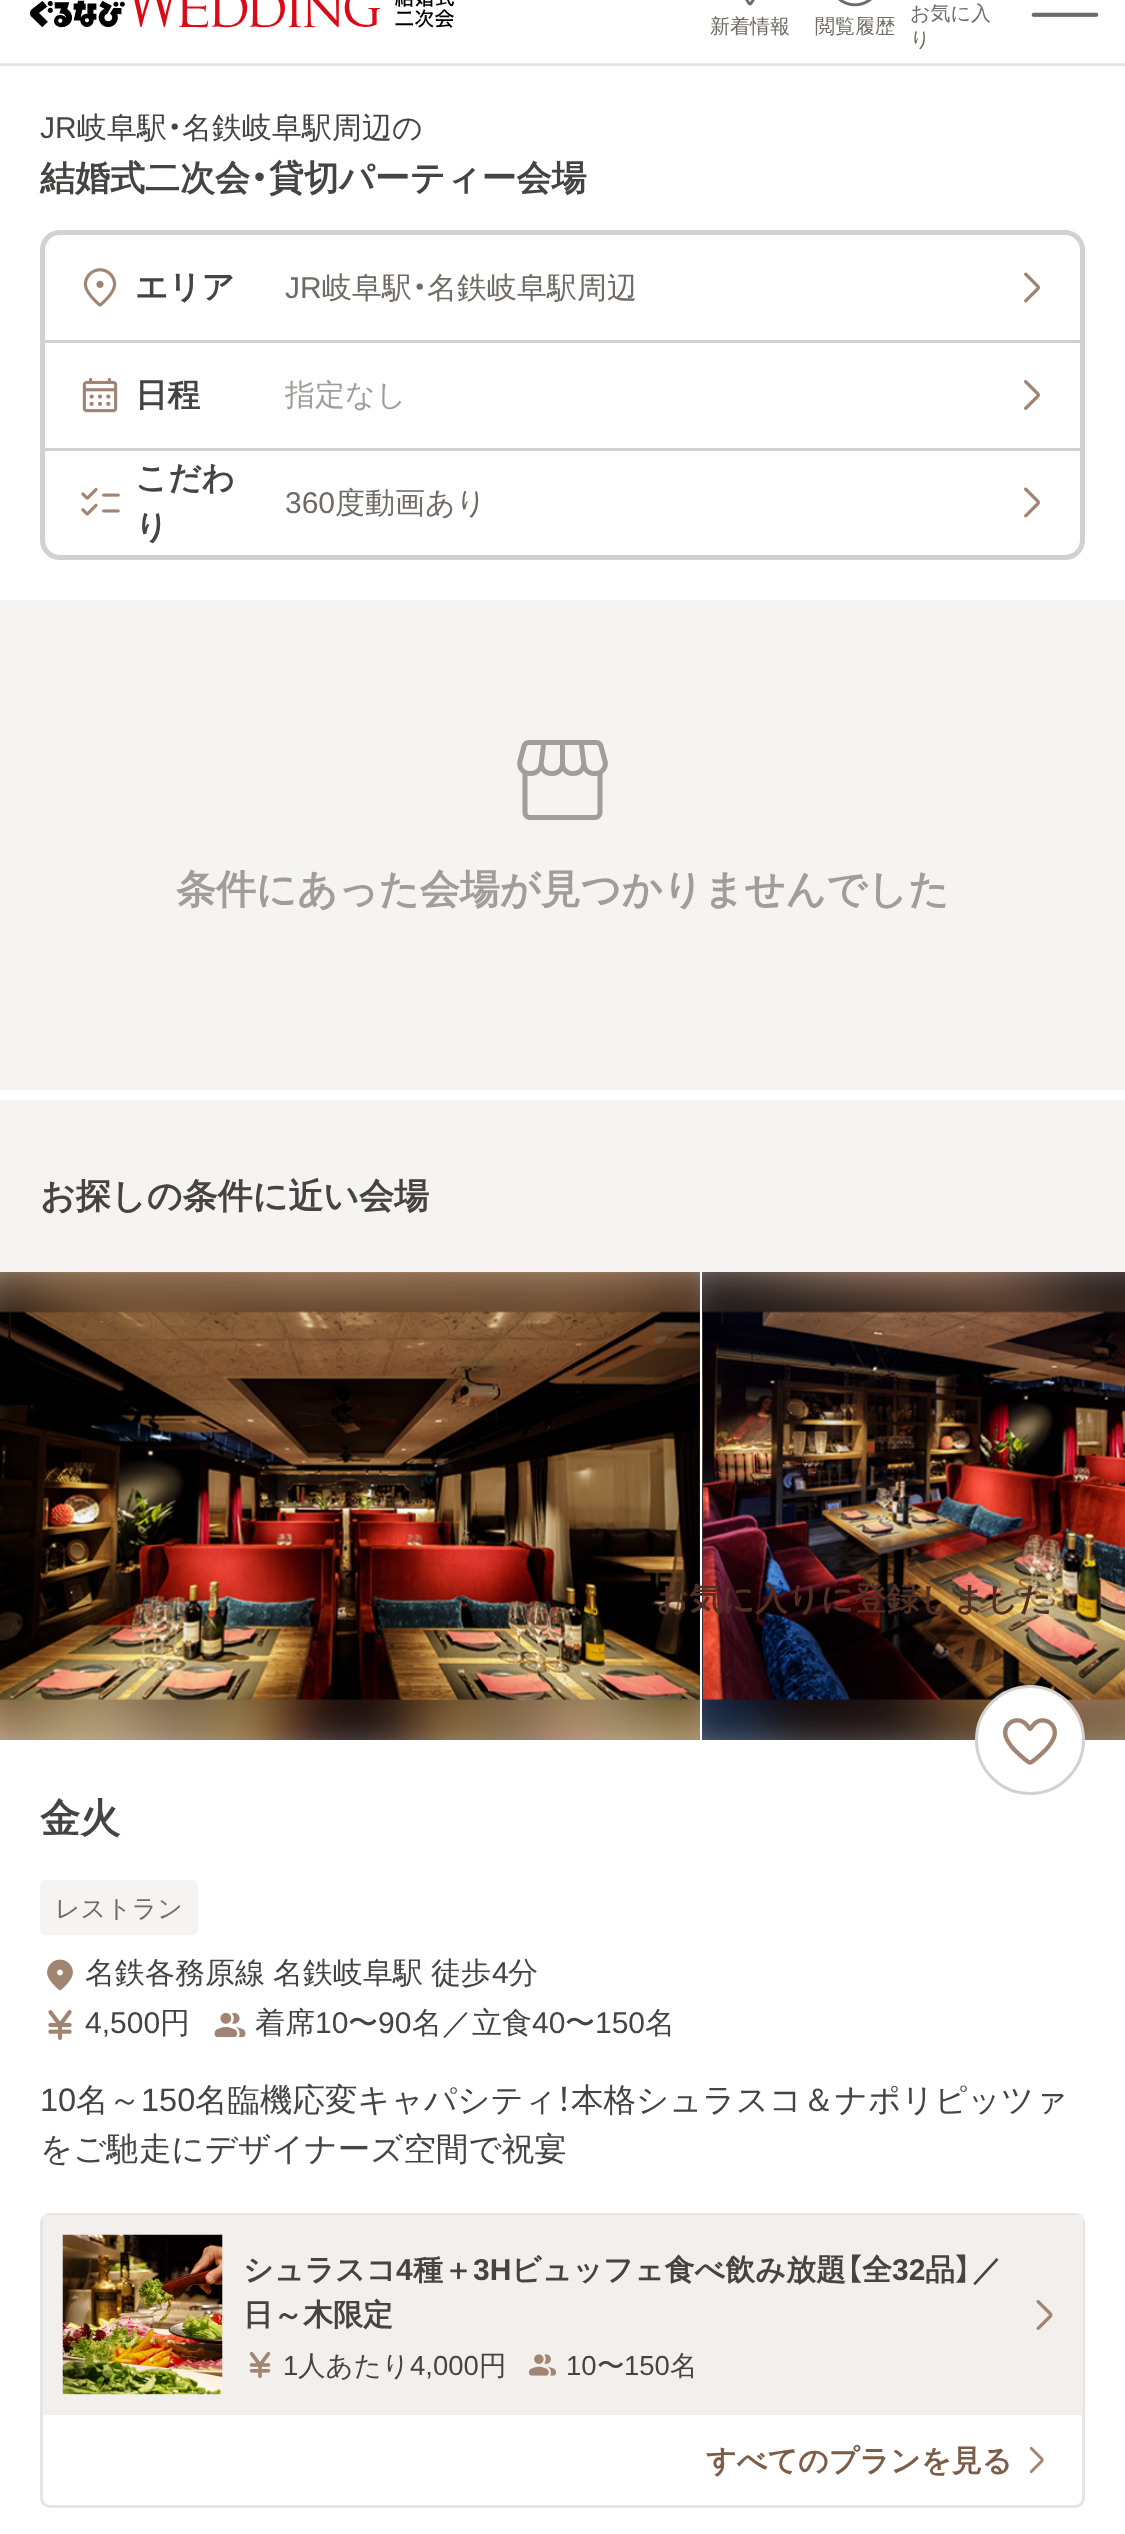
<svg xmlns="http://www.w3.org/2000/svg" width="1125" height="2534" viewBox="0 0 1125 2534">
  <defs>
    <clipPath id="clip1"><rect x="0" y="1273" width="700" height="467"/></clipPath>
    <filter id="blur1" x="-50%" y="-200%" width="200%" height="500%"><feGaussianBlur stdDeviation="25"/></filter>
    <clipPath id="clip2"><rect x="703" y="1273" width="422" height="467"/></clipPath>
  </defs>
  <rect width="100%" height="100%" fill="#ffffff"/>
  <rect x="0" y="63" width="1125" height="3" fill="#e7e5e4"/>
  <image x="30" y="0" width="424" height="28" href="img1.png"/>
  <image x="745" y="0" width="10" height="6" href="img2.png"/>
  <text x="710" y="33" font-family="WenQuanYi Zen Hei" font-size="20" font-weight="500" fill="#706a65">新着情報</text>
  <image x="838" y="0" width="34" height="7" href="img3.png"/>
  <text x="815" y="33" font-family="WenQuanYi Zen Hei" font-size="20" font-weight="500" fill="#706a65">閲覧履歴</text>
  <text x="910" y="20" font-family="WenQuanYi Zen Hei" font-size="20" font-weight="500" fill="#706a65">お気に入</text>
  <text x="910" y="46" font-family="WenQuanYi Zen Hei" font-size="20" font-weight="500" fill="#706a65">り</text>
  <image x="1031" y="12" width="68" height="5" href="img4.png"/>
  <text x="40" y="138" font-family="Liberation Sans" font-size="30" fill="#464443">JR</text>
  <text x="77" y="138" font-family="WenQuanYi Zen Hei" font-size="30" font-weight="500" fill="#464443">岐阜駅</text>
  <text x="167" y="138" font-family="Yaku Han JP" font-size="30" fill="#464443">・</text>
  <text x="182" y="138" font-family="WenQuanYi Zen Hei" font-size="30" font-weight="500" fill="#464443">名鉄岐阜駅周辺</text>
  <text x="392" y="138" font-family="WenQuanYi Zen Hei" font-size="30" font-weight="500" fill="#464443">の</text>
  <text x="40" y="190" font-family="WenQuanYi Zen Hei" font-size="35" font-weight="bold" fill="#464443">結婚式二次会</text>
  <text x="250" y="190" font-family="Yaku Han JP" font-size="35" font-weight="600" fill="#464443">・</text>
  <text x="269" y="190" font-family="WenQuanYi Zen Hei" font-size="35" font-weight="bold" fill="#464443">貸切パーティー会場</text>
  <rect x="42.5" y="232.5" width="1040" height="325" rx="17.5" fill="none" stroke="#d4d0cd" stroke-width="5"/>
  <rect x="45" y="340" width="1035" height="3" fill="#d4d0cd"/>
  <image x="83" y="268" width="34" height="39" href="img5.png"/>
  <text x="135" y="298" font-family="WenQuanYi Zen Hei" font-size="32.5" font-weight="bold" fill="#464443">エリア</text>
  <text x="285" y="298" font-family="Liberation Sans" font-size="30" fill="#706a65">JR</text>
  <text x="322" y="298" font-family="WenQuanYi Zen Hei" font-size="30" font-weight="500" fill="#706a65">岐阜駅</text>
  <text x="412" y="298" font-family="Yaku Han JP" font-size="30" fill="#706a65">・</text>
  <text x="427" y="298" font-family="WenQuanYi Zen Hei" font-size="30" font-weight="500" fill="#706a65">名鉄岐阜駅周辺</text>
  <image x="1024" y="272" width="16" height="31" href="img6.png"/>
  <rect x="45" y="448" width="1035" height="3" fill="#d4d0cd"/>
  <image x="82" y="377" width="36" height="36" href="img7.png"/>
  <text x="135" y="406" font-family="WenQuanYi Zen Hei" font-size="32.5" font-weight="bold" fill="#464443">日程</text>
  <text x="285" y="405" font-family="WenQuanYi Zen Hei" font-size="30" font-weight="500" fill="#a09d9a">指定なし</text>
  <image x="1024" y="380" width="16" height="30" href="img8.png"/>
  <image x="81" y="488" width="39" height="28" href="img9.png"/>
  <text x="135" y="489" font-family="WenQuanYi Zen Hei" font-size="32.5" font-weight="bold" fill="#464443">こだわ</text>
  <text x="135" y="538" font-family="WenQuanYi Zen Hei" font-size="32.5" font-weight="bold" fill="#464443">り</text>
  <text x="285" y="513" font-family="Liberation Sans" font-size="30" fill="#706a65">360</text>
  <text x="335" y="513" font-family="WenQuanYi Zen Hei" font-size="30" font-weight="500" fill="#706a65">度動画あり</text>
  <image x="1024" y="487" width="16" height="31" href="img6.png"/>
  <rect x="0" y="600" width="1125" height="490" fill="#f5f4f3"/>
  <image x="517" y="740" width="91" height="80" href="img10.png"/>
  <text x="176" y="903" font-family="WenQuanYi Zen Hei" font-size="40" font-weight="bold" fill="#a09d9a">条件にあった会場が見つかりませんでした</text>
  <rect x="0" y="1100" width="1125" height="173" fill="#f5f4f3"/>
  <text x="40" y="1208" font-family="WenQuanYi Zen Hei" font-size="35" font-weight="bold" fill="#464443">お探しの条件に近い会場</text>
  <image x="0" y="1272" width="700" height="468" href="img11.png"/>
  <g clip-path="url(#clip1)">
    <rect x="-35" y="1250" width="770" height="513" fill="#464443" fill-opacity="0.16" filter="url(#blur1)"/>
  </g>
  <image x="0" y="1311" width="700" height="389" href="img12.png"/>
  <image x="702" y="1272" width="423" height="468" href="img13.png"/>
  <g clip-path="url(#clip2)">
    <rect x="668" y="1250" width="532" height="513" fill="#464443" fill-opacity="0.16" filter="url(#blur1)"/>
  </g>
  <image x="703" y="1311" width="422" height="389" href="img14.png"/>
  <text x="656" y="1610" font-family="WenQuanYi Zen Hei" font-size="32.5" font-weight="bold" fill="#522f24">お気に入りに登録しました</text>
  <circle cx="1030" cy="1740" r="53.5" fill="#ffffff" stroke="#d4d0cd" stroke-width="3"/>
  <image x="1003" y="1718" width="54" height="47" href="img15.png"/>
  <text x="40" y="1832" font-family="WenQuanYi Zen Hei" font-size="40" font-weight="bold" fill="#464443">金火</text>
  <rect x="40" y="1880" width="158" height="55" rx="5" fill="#f5f4f3"/>
  <text x="55" y="1917" font-family="WenQuanYi Zen Hei" font-size="25" font-weight="500" fill="#706a65">レストラン</text>
  <image x="47" y="1959" width="26" height="32" href="img16.png"/>
  <text x="85" y="1983" word-spacing="-1" font-family="WenQuanYi Zen Hei" font-size="30" font-weight="500" fill="#464443">名鉄各務原線 名鉄岐阜駅 徒歩</text>
  <text x="492" y="1983" font-family="Liberation Sans" font-size="30" fill="#464443">4</text>
  <text x="508" y="1983" font-family="WenQuanYi Zen Hei" font-size="30" font-weight="500" fill="#464443">分</text>
  <image x="48" y="2010" width="24" height="30" href="img17.png"/>
  <text x="85" y="2033" font-family="Liberation Sans" font-size="30" fill="#464443">4,500</text>
  <text x="160" y="2033" font-family="WenQuanYi Zen Hei" font-size="30" font-weight="500" fill="#464443">円</text>
  <image x="214" y="2012" width="32" height="26" href="img18.png"/>
  <text x="255" y="2033" font-family="WenQuanYi Zen Hei" font-size="30" font-weight="500" fill="#464443">着席</text>
  <text x="315" y="2033" font-family="Liberation Sans" font-size="30" fill="#464443">10</text>
  <text x="348" y="2033" font-family="WenQuanYi Zen Hei" font-size="30" font-weight="500" fill="#464443">〜</text>
  <text x="378" y="2033" font-family="Liberation Sans" font-size="30" fill="#464443">90</text>
  <text x="412" y="2033" font-family="WenQuanYi Zen Hei" font-size="30" font-weight="500" fill="#464443">名／立食</text>
  <text x="532" y="2033" font-family="Liberation Sans" font-size="30" fill="#464443">40</text>
  <text x="565" y="2033" font-family="WenQuanYi Zen Hei" font-size="30" font-weight="500" fill="#464443">〜</text>
  <text x="595" y="2033" font-family="Liberation Sans" font-size="30" fill="#464443">150</text>
  <text x="645" y="2033" font-family="WenQuanYi Zen Hei" font-size="30" font-weight="500" fill="#464443">名</text>
  <text x="40" y="2111" font-family="Liberation Sans" font-size="32.5" fill="#464443">10</text>
  <text x="76" y="2111" font-family="WenQuanYi Zen Hei" font-size="32.5" font-weight="500" fill="#464443">名～</text>
  <text x="141" y="2111" font-family="Liberation Sans" font-size="32.5" fill="#464443">150</text>
  <text x="195" y="2111" font-family="WenQuanYi Zen Hei" font-size="32.5" font-weight="500" fill="#464443">名臨機応変キャパシティ</text>
  <text x="557" y="2111" font-family="Yaku Han JP" font-size="32.5" fill="#464443">！</text>
  <text x="571" y="2111" font-family="WenQuanYi Zen Hei" font-size="32.5" font-weight="500" fill="#464443">本格シュラスコ＆ナポリピッツァ</text>
  <text x="40" y="2160" font-family="WenQuanYi Zen Hei" font-size="32.5" font-weight="500" fill="#464443">をご馳走にデザイナーズ空間で祝宴</text>
  <rect x="41.5" y="2214.5" width="1042" height="292" rx="8.5" fill="none" stroke="#e7e5e4" stroke-width="3"/>
  <rect x="43" y="2215" width="1040" height="200" fill="#f3efec"/>
  <image x="62" y="2234" width="161" height="161" href="img19.png"/>
  <text x="243" y="2280" font-family="WenQuanYi Zen Hei" font-size="30" font-weight="bold" fill="#464443">シュラスコ</text>
  <text x="396" y="2280" font-family="Liberation Sans" font-size="30" font-weight="bold" fill="#464443">4</text>
  <text x="413" y="2280" font-family="WenQuanYi Zen Hei" font-size="30" font-weight="bold" fill="#464443">種＋</text>
  <text x="473" y="2280" font-family="Liberation Sans" font-size="30" font-weight="bold" fill="#464443">3H</text>
  <text x="511" y="2280" font-family="WenQuanYi Zen Hei" font-size="30" font-weight="bold" fill="#464443">ビュッフェ食べ飲み放題</text>
  <text x="846" y="2280" font-family="Yaku Han JP" font-size="30" font-weight="600" fill="#464443">【</text>
  <text x="862" y="2280" font-family="WenQuanYi Zen Hei" font-size="30" font-weight="bold" fill="#464443">全</text>
  <text x="892" y="2280" font-family="Liberation Sans" font-size="30" font-weight="bold" fill="#464443">32</text>
  <text x="925" y="2280" font-family="WenQuanYi Zen Hei" font-size="30" font-weight="bold" fill="#464443">品</text>
  <text x="955" y="2280" font-family="Yaku Han JP" font-size="30" font-weight="600" fill="#464443">】</text>
  <text x="972" y="2280" font-family="WenQuanYi Zen Hei" font-size="30" font-weight="bold" fill="#464443">／</text>
  <text x="243" y="2325" font-family="WenQuanYi Zen Hei" font-size="30" font-weight="bold" fill="#464443">日～木限定</text>
  <image x="249" y="2351" width="22" height="28" href="img20.png"/>
  <text x="283" y="2375" font-family="Liberation Sans" font-size="27.5" fill="#464443">1</text>
  <text x="298" y="2375" font-family="WenQuanYi Zen Hei" font-size="27.5" font-weight="500" fill="#464443">人あたり</text>
  <text x="410" y="2375" font-family="Liberation Sans" font-size="27.5" fill="#464443">4,000</text>
  <text x="479" y="2375" font-family="WenQuanYi Zen Hei" font-size="27.5" font-weight="500" fill="#464443">円</text>
  <image x="529" y="2354" width="27" height="22" href="img21.png"/>
  <text x="566" y="2375" font-family="Liberation Sans" font-size="27.5" fill="#464443">10</text>
  <text x="597" y="2375" font-family="WenQuanYi Zen Hei" font-size="27.5" font-weight="500" fill="#464443">〜</text>
  <text x="624" y="2375" font-family="Liberation Sans" font-size="27.5" fill="#464443">150</text>
  <text x="670" y="2375" font-family="WenQuanYi Zen Hei" font-size="27.5" font-weight="500" fill="#464443">名</text>
  <image x="1036" y="2300" width="17" height="30" href="img22.png"/>
  <text x="706" y="2471" font-family="WenQuanYi Zen Hei" font-size="30" font-weight="bold" fill="#7b5d48">すべてのプランを見る</text>
  <image x="1029" y="2446" width="15" height="28" href="img23.png"/>
</svg>
